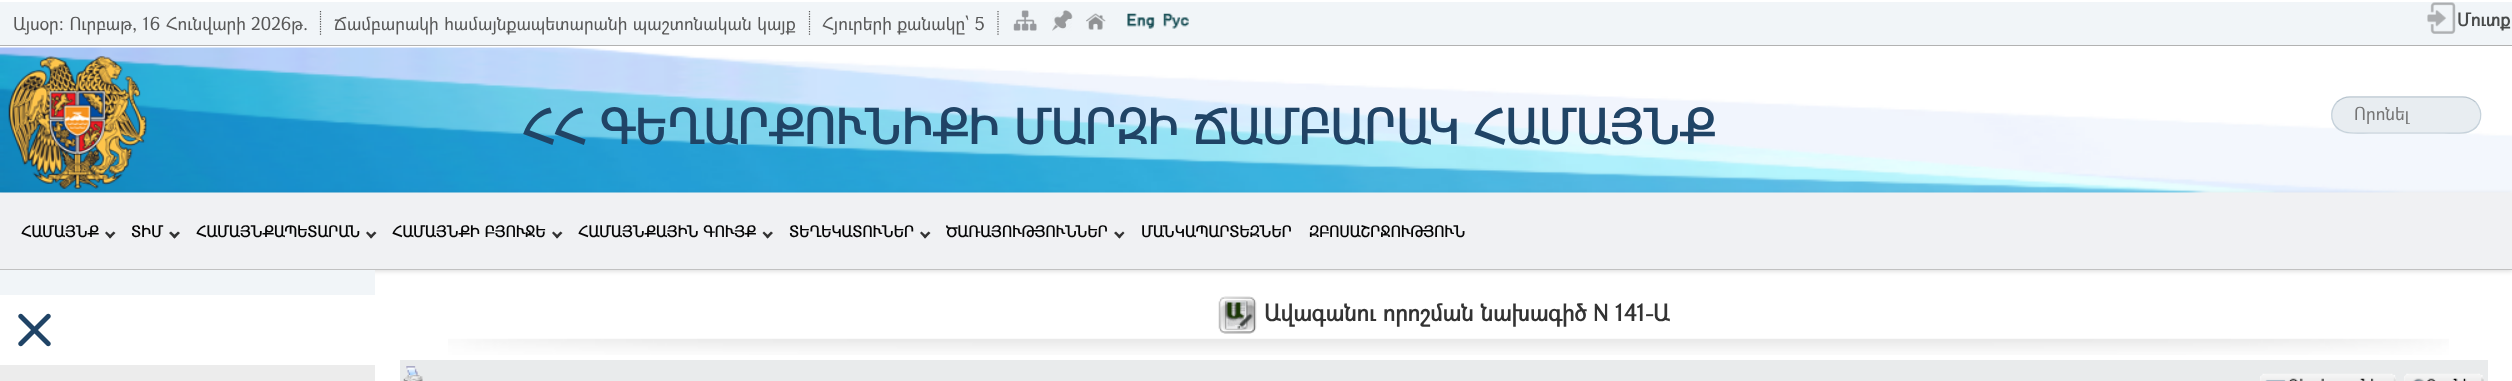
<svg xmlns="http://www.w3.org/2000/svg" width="2512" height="381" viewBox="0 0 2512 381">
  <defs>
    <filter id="blur1" x="-50%" y="-200%" width="200%" height="500%"><feGaussianBlur stdDeviation="0.5"/></filter>
    <clipPath id="clip1"><rect x="2351" y="104" width="110" height="20" rx="10"/></clipPath>
    <filter id="blur2" x="-50%" y="-200%" width="200%" height="500%"><feGaussianBlur stdDeviation="2.5"/></filter>
  </defs>
  <rect width="100%" height="100%" fill="#ffffff"/>
  <image x="0" y="47" width="2512" height="146" href="img7.png"/>
  <rect x="0" y="4" width="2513" height="42" fill="#000000" fill-opacity="0.3" filter="url(#blur1)"/>
  <rect x="0" y="2" width="2512" height="43" fill="#f1f5f8"/>
  <path d="M320.5 11V36" fill="none" stroke="#585858" stroke-width="1.2" stroke-dasharray="1.25 1.25"/>
  <text x="13" y="30" font-family="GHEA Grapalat" font-size="17.5" fill="#585858">Այսօր: Ուրբաթ, 16 Հունվարի 2026թ.</text>
  <path d="M809.5 11V36" fill="none" stroke="#585858" stroke-width="1.2" stroke-dasharray="1.25 1.25"/>
  <text x="334" y="30" font-family="GHEA Grapalat" font-size="17.5" fill="#585858">Ճամբարակի համայնքապետարանի պաշտոնական կայք</text>
  <path d="M998 11V36" fill="none" stroke="#585858" stroke-width="1.2" stroke-dasharray="1.25 1.25"/>
  <text x="822" y="30" font-family="GHEA Grapalat" font-size="17.5" fill="#585858">Հյուրերի քանակը՝ 5</text>
  <image x="1013" y="10" width="24" height="21" href="img1.png"/>
  <image x="1052" y="10" width="21" height="21" href="img2.png"/>
  <image x="1086" y="13" width="20" height="17" href="img3.png"/>
  <image x="1127" y="13" width="28" height="16" href="img4.png"/>
  <image x="1163" y="13" width="26" height="16" href="img5.png"/>
  <image x="2427" y="2" width="29" height="32" href="img6.png"/>
  <text x="2457" y="26" font-family="GHEA Grapalat" font-size="17.5" font-weight="bold" fill="#484a4a">Մուտք</text>
  <rect x="2331" y="96" width="150" height="38" rx="19" fill="#e8edf1"/>
  <path d="M2337 102C2340.5 99 2345 97 2350 97H2462.5C2467.5 97 2472 99 2475.5 102" fill="none" stroke="#b4c1cb" stroke-width="1.2"/>
  <path d="M2475.5 102C2479.5 106.5 2481.5 112.5 2480.5 118.5C2476.5 136.5 2457.5 133 2444 133H2369C2355 133 2336 136.5 2332 118.5C2331 112.5 2333 106.5 2337 102" fill="none" stroke="#c6d2db" stroke-width="1.2"/>
  <g clip-path="url(#clip1)">
    <text x="2354" y="120" font-family="GHEA Grapalat" font-size="17.5" fill="#757575">Որոնել</text>
  </g>
  <rect x="0" y="194" width="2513" height="77" fill="#020303" fill-opacity="0.15" filter="url(#blur2)"/>
  <image x="8" y="56" width="139" height="133" href="img8.png"/>
  <text x="522" y="144" font-family="GHEA Grapalat" font-size="46.7" font-weight="bold" fill="#204466">ՀՀ ԳԵՂԱՐՔՈՒՆԻՔԻ ՄԱՐԶԻ ՃԱՄԲԱՐԱԿ ՀԱՄԱՅՆՔ</text>
  <rect x="0" y="193" width="2512" height="76" fill="#f0f1f3"/>
  <rect x="0" y="269" width="2512" height="1" fill="#c1c1c1"/>
  <text x="21" y="237" font-family="GHEA Grapalat" font-size="15" font-weight="bold" fill="#050505">ՀԱՄԱՅՆՔ</text>
  <path d="M113.5 231.5L115.5 233L110 238.5L108.5 236.5Z" fill="#333333"/>
  <path d="M106.5 231.5L112 236.5L110 238.5L105 233Z" fill="#333333"/>
  <text x="131" y="237" font-family="GHEA Grapalat" font-size="15" font-weight="bold" fill="#050505">ՏԻՄ</text>
  <path d="M178 231.5L180 233L174.5 238.5L172.5 236.5Z" fill="#333333"/>
  <path d="M171 231.5L176.5 236.5L174.5 238.5L169 233Z" fill="#333333"/>
  <text x="196" y="237" font-family="GHEA Grapalat" font-size="15" font-weight="bold" fill="#050505">ՀԱՄԱՅՆՔԱՊԵՏԱՐԱՆ</text>
  <path d="M374.5 231.5L376.5 233L371 238.5L369.5 236.5Z" fill="#333333"/>
  <path d="M367.5 231.5L373 236.5L371 238.5L366 233Z" fill="#333333"/>
  <text x="392" y="237" font-family="GHEA Grapalat" font-size="15" font-weight="bold" fill="#050505">ՀԱՄԱՅՆՔԻ ԲՅՈՒՋԵ</text>
  <path d="M560.5 231.5L562.5 233L557 238.5L555.5 236.5Z" fill="#333333"/>
  <path d="M553.5 231.5L559 236.5L557 238.5L552 233Z" fill="#333333"/>
  <text x="578" y="237" font-family="GHEA Grapalat" font-size="15" font-weight="bold" fill="#050505">ՀԱՄԱՅՆՔԱՅԻՆ ԳՈՒՅՔ</text>
  <path d="M771 231.5L773 233L767.5 238.5L766 236.5Z" fill="#333333"/>
  <path d="M764 231.5L769.5 236.5L767.5 238.5L762.5 233Z" fill="#333333"/>
  <text x="789" y="237" font-family="GHEA Grapalat" font-size="15" font-weight="bold" fill="#050505">ՏԵՂԵԿԱՏՈՒՆԵՐ</text>
  <path d="M928.5 231.5L930.5 233L925 238.5L923.5 236.5Z" fill="#333333"/>
  <path d="M921.5 231.5L927 236.5L925 238.5L920 233Z" fill="#333333"/>
  <text x="946" y="237" font-family="GHEA Grapalat" font-size="15" font-weight="bold" fill="#050505">ԾԱՌԱՅՈՒԹՅՈՒՆՆԵՐ</text>
  <path d="M1123 231.5L1124.5 233L1119.5 238.5L1117.5 236.5Z" fill="#333333"/>
  <path d="M1116 231.5L1121 236.5L1119.5 238.5L1114 233Z" fill="#333333"/>
  <text x="1141" y="237" font-family="GHEA Grapalat" font-size="15" font-weight="bold" fill="#050505">ՄԱՆԿԱՊԱՐՏԵԶՆԵՐ</text>
  <text x="1309" y="237" font-family="GHEA Grapalat" font-size="15" font-weight="bold" fill="#050505">ԶԲՈՍԱՇՐՋՈՒԹՅՈՒՆ</text>
  <rect x="0" y="270" width="375" height="25" fill="#f1f5f8"/>
  <path d="M22.5 314.5L50 342C51 343 51 344.5 50 345.5C49 346.5 47.5 346.5 46.5 345.5L19 318C18 317 18 315.5 19 314.5C20 313.5 21.5 313.5 22.5 314.5Z" fill="#204466"/>
  <path d="M19 342L46.5 314.5C47.5 313.5 49 313.5 50 314.5C51 315.5 51 317 50 318L22.5 345.5C21.5 346.5 20 346.5 19 345.5C18 344.5 18 343 19 342Z" fill="#204466"/>
  <rect x="0" y="365" width="375" height="16" fill="#ececec"/>
  <image x="448" y="338" width="2001" height="17" href="img9.png"/>
  <image x="1218" y="296" width="39" height="38" href="img10.png"/>
  <text x="1264" y="321" font-family="GHEA Grapalat" font-size="22.5" font-weight="bold" fill="#333333">Ավագանու որոշման նախագիծ N 141-Ա</text>
  <rect x="400" y="360" width="2088" height="21" fill="#e9ebec"/>
  <image x="403" y="366" width="20" height="15" href="img11.png"/>
  <image x="2260" y="373" width="136" height="8" href="img12.png"/>
  <image x="2404" y="373" width="80" height="8" href="img13.png"/>
</svg>
